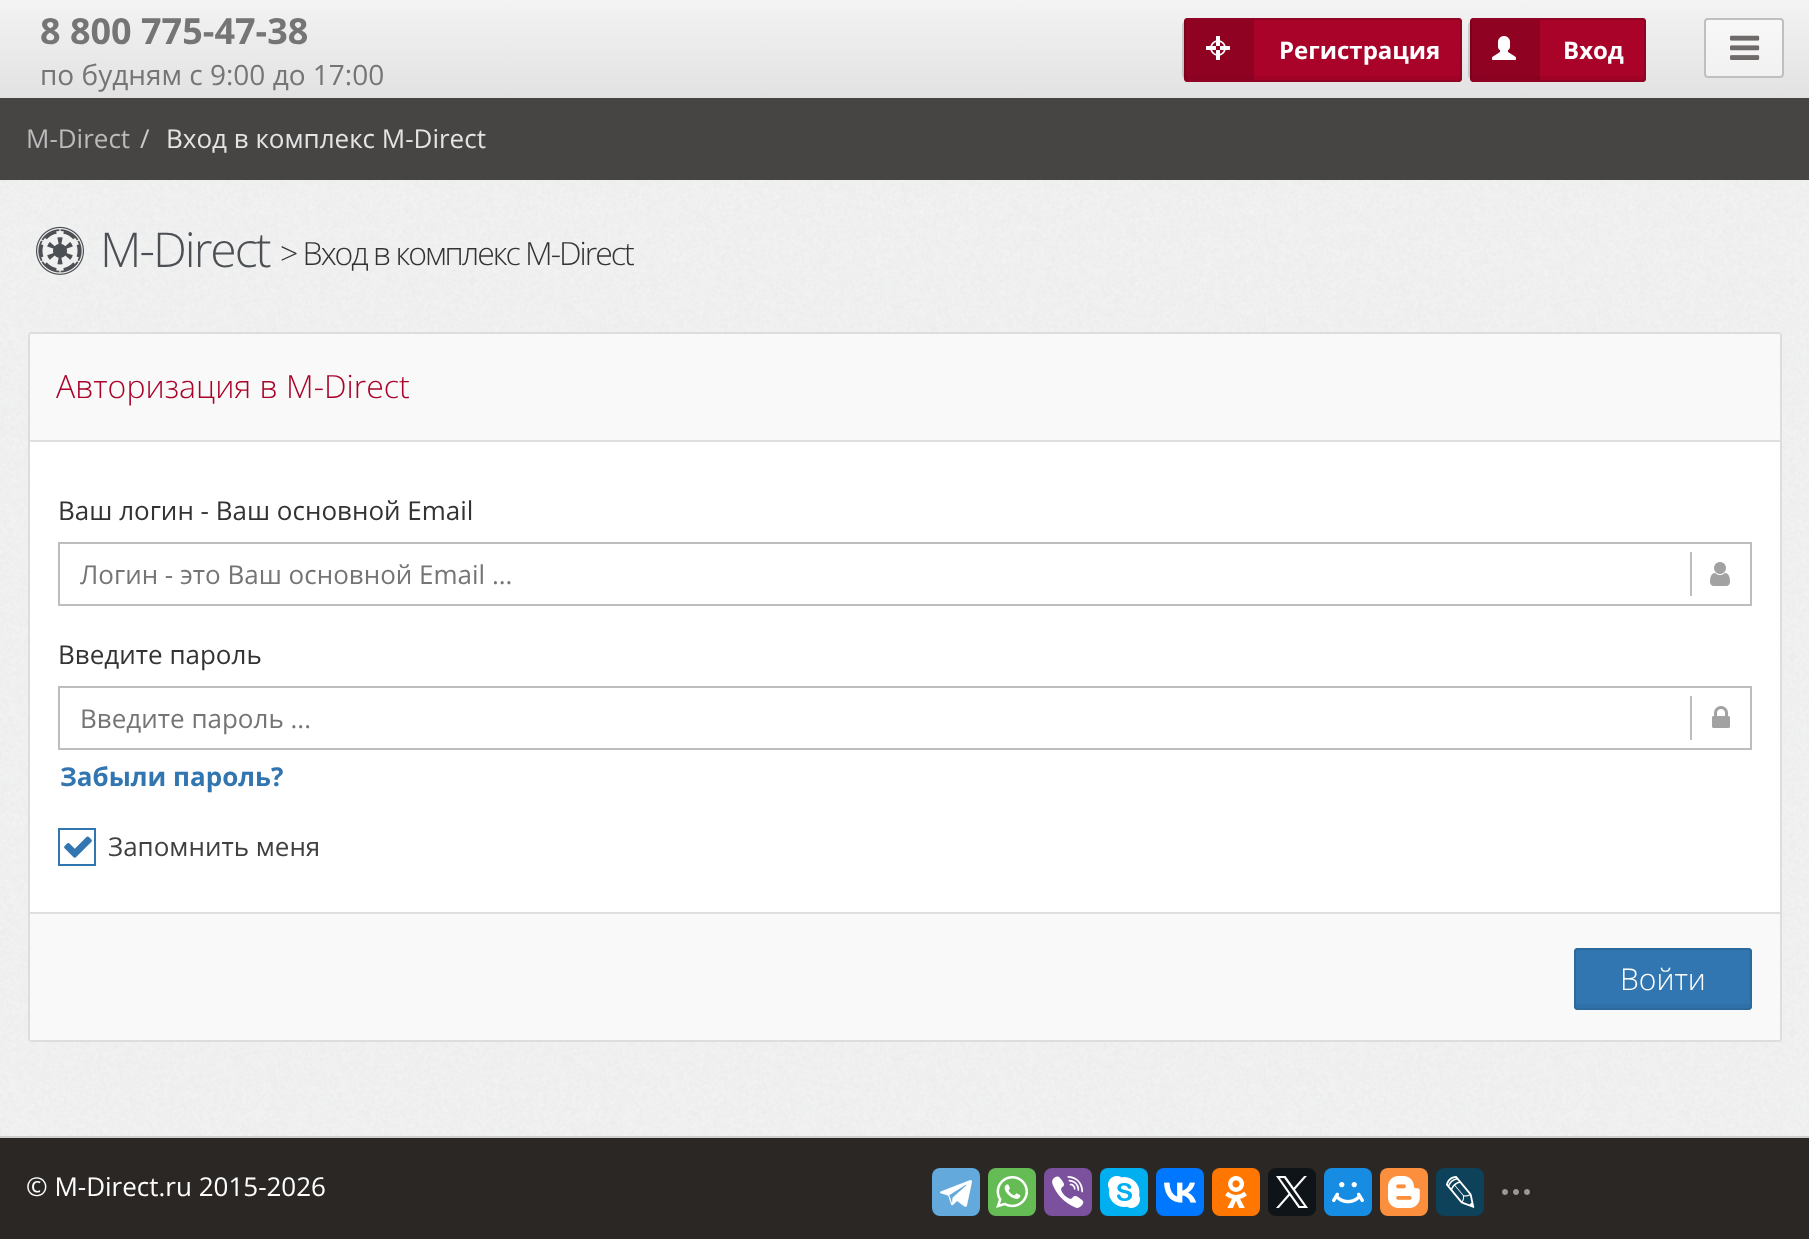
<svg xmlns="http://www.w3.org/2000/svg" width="1809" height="1239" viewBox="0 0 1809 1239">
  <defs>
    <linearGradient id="g1" gradientUnits="userSpaceOnUse" x1="905" y1="0" x2="905" y2="98"><stop offset="0" stop-color="#f3f3f3"/><stop offset="1" stop-color="#e2e2e2"/></linearGradient>
    <clipPath id="clip1"><rect x="1704" y="18" width="80" height="60" rx="4"/></clipPath>
    <linearGradient id="g2" gradientUnits="userSpaceOnUse" x1="1744" y1="20" x2="1744" y2="76"><stop offset="0" stop-color="#f8f8f8"/><stop offset="1" stop-color="#f1f1f1"/></linearGradient>
  </defs>
  <rect width="100%" height="100%" fill="#ffffff"/>
  <image x="0" y="180" width="1809" height="956" href="img1.png"/>
  <rect x="0" y="0" width="1809" height="98" fill="url(#g1)"/>
  <text x="40" y="44" font-family="Open Sans" font-size="36" font-weight="bold" fill="#757575">8 800 775-47-38</text>
  <text x="40" y="85" font-family="Open Sans" font-size="28" fill="#757575">по будням с 9:00 до 17:00</text>
  <rect x="1184" y="18" width="278" height="64" rx="4" fill="#a90329"/>
  <path d="M1186 74C1186 76 1185 79 1187 80H1458C1461 80 1460 76 1460 74C1460 75 1459 76 1458 76H1188C1187 76 1186 75 1186 74Z" fill="#a10327"/>
  <rect x="1185" y="19" width="276" height="62" rx="3" fill="none" stroke="#900323" stroke-width="2"/>
  <path d="M1188 20H1254V80H1188C1184.5 80 1182 77.5 1182 74V26C1182 22.5 1184.5 20 1188 20Z" fill="#000000" fill-opacity="0.15"/>
  <image x="1206" y="36" width="24" height="24" href="img2.png"/>
  <text x="1279" y="59" font-family="Open Sans" font-size="24" font-weight="bold" fill="#ffffff">Регистрация</text>
  <rect x="1470" y="18" width="176" height="64" rx="4" fill="#a90329"/>
  <path d="M1472 74V78C1472 79 1473 80 1474 80H1642C1643 80 1644 79 1644 78V74C1644 75 1643 76 1642 76H1474C1473 76 1472 75 1472 74Z" fill="#a10327"/>
  <rect x="1471" y="19" width="174" height="62" rx="3" fill="none" stroke="#900323" stroke-width="2"/>
  <path d="M1474 20H1540V80H1474C1470.5 80 1468 77.5 1468 74V26C1468 22.5 1470.5 20 1474 20Z" fill="#000000" fill-opacity="0.15"/>
  <image x="1492" y="36" width="24" height="24" href="img3.png"/>
  <text x="1563" y="59" font-family="Open Sans" font-size="24" font-weight="bold" fill="#ffffff">Вход</text>
  <g clip-path="url(#clip1)">
    <rect x="1704" y="20" width="80" height="56" fill="url(#g2)"/>
  </g>
  <rect x="1705" y="19" width="78" height="58" rx="3" fill="none" stroke="#bfbfbf" stroke-width="2"/>
  <image x="1730" y="35" width="30" height="25" href="img4.png"/>
  <rect x="0" y="98" width="1809" height="82" fill="#474544"/>
  <text x="26" y="148" font-family="Open Sans" font-size="26" fill="#bbbbbb">M-Direct</text>
  <text x="140" y="148" font-family="Open Sans" font-size="26" fill="#cccccc">/</text>
  <text x="166" y="148" font-family="Open Sans" font-size="26" fill="#e4e4e4">Вход в комплекс M-Direct</text>
  <image x="36" y="226" width="48" height="49" href="img5.png"/>
  <text x="100" y="267" font-family="Open Sans" font-size="48" font-weight="300" letter-spacing="-2" fill="#4c4f53">M-Direct</text>
  <text x="280" y="265" font-family="Open Sans" font-size="32" font-weight="300" letter-spacing="-2" fill="#333333">&gt; Вход в комплекс M-Direct</text>
  <rect x="29" y="333" width="1752" height="708" rx="3" fill="#fbfbfb" stroke="#dddddd" stroke-width="2"/>
  <rect x="30" y="334" width="1750" height="106" fill="#f8f8f8" fill-opacity="0.9"/>
  <rect x="30" y="440" width="1750" height="2" fill="#dfdfdf"/>
  <text x="56" y="398" font-family="Open Sans" font-size="32" font-weight="300" fill="#a90329">Авторизация в M-Direct</text>
  <rect x="30" y="442" width="1750" height="470" fill="#ffffff"/>
  <text x="58" y="520" font-family="Open Sans" font-size="26" fill="#333333">Ваш логин - Ваш основной Email</text>
  <rect x="59" y="543" width="1692" height="62" fill="none" stroke="#bdbdbd" stroke-width="2"/>
  <text x="80" y="584" font-family="Open Sans" font-size="26" fill="#757575">Логин - это Ваш основной Email ...</text>
  <rect x="1690" y="552" width="2" height="44" fill="#bdbdbd"/>
  <image x="1710" y="562" width="20" height="24" href="img6.png"/>
  <text x="58" y="664" font-family="Open Sans" font-size="26" fill="#333333">Введите пароль</text>
  <rect x="59" y="687" width="1692" height="62" fill="none" stroke="#bdbdbd" stroke-width="2"/>
  <text x="80" y="728" font-family="Open Sans" font-size="26" fill="#757575">Введите пароль ...</text>
  <rect x="1690" y="696" width="2" height="44" fill="#bdbdbd"/>
  <image x="1712" y="706" width="18" height="22" href="img7.png"/>
  <text x="60" y="786" font-family="Open Sans" font-size="26" font-weight="bold" fill="#3276b1">Забыли пароль?</text>
  <rect x="59" y="829" width="36" height="36" fill="none" stroke="#3276b1" stroke-width="2"/>
  <image x="64" y="836" width="28" height="22" href="img8.png"/>
  <text x="108" y="856" font-family="Open Sans" font-size="26" fill="#404040">Запомнить меня</text>
  <rect x="30" y="914" width="1750" height="126" fill="#f8f8f8" fill-opacity="0.9"/>
  <rect x="30" y="912" width="1750" height="2" fill="#dfdfdf"/>
  <rect x="1574" y="948" width="178" height="62" rx="4" fill="#3276b1"/>
  <path d="M1576 1002V1006C1576 1007 1577 1008 1578 1008H1748C1749 1008 1750 1007 1750 1006V1002C1750 1003 1749 1004 1748 1004H1578C1577 1004 1576 1003 1576 1002Z" fill="#3070a8"/>
  <rect x="1575" y="949" width="176" height="60" rx="3" fill="none" stroke="#2c699d" stroke-width="2"/>
  <text x="1620" y="990" font-family="Open Sans" font-size="30" font-weight="300" fill="#ffffff">Войти</text>
  <rect x="0" y="1138" width="1809" height="101" fill="#2a2725"/>
  <rect x="0" y="1136" width="1809" height="2" fill="#cecece"/>
  <text x="26" y="1196" font-family="Open Sans" font-size="26" fill="#ffffff">© M-Direct.ru 2015-2026</text>
  <rect x="932" y="1168" width="48" height="48" rx="8" fill="#64a9dc"/>
  <image x="940" y="1180" width="32" height="27" href="img9.png"/>
  <rect x="988" y="1168" width="48" height="48" rx="8" fill="#65bc54"/>
  <image x="996" y="1176" width="32" height="32" href="img10.png"/>
  <rect x="1044" y="1168" width="48" height="48" rx="8" fill="#7b519d"/>
  <image x="1052" y="1176" width="32" height="32" href="img11.png"/>
  <rect x="1100" y="1168" width="48" height="48" rx="8" fill="#00aff0"/>
  <image x="1108" y="1176" width="32" height="32" href="img12.png"/>
  <rect x="1156" y="1168" width="48" height="48" rx="8" fill="#0077ff"/>
  <image x="1164" y="1182" width="33" height="21" href="img13.png"/>
  <rect x="1212" y="1168" width="48" height="48" rx="8" fill="#ff7700"/>
  <image x="1225" y="1176" width="22" height="32" href="img14.png"/>
  <rect x="1268" y="1168" width="48" height="48" rx="8" fill="#0f1419"/>
  <image x="1276" y="1176" width="32" height="32" href="img15.png"/>
  <rect x="1324" y="1168" width="48" height="48" rx="8" fill="#168de2"/>
  <image x="1332" y="1182" width="32" height="22" href="img16.png"/>
  <rect x="1380" y="1168" width="48" height="48" rx="8" fill="#fb8f3d"/>
  <image x="1388" y="1176" width="32" height="32" href="img17.png"/>
  <rect x="1436" y="1168" width="48" height="48" rx="8" fill="#0d425a"/>
  <image x="1446" y="1176" width="29" height="32" href="img18.png"/>
  <image x="1502" y="1189" width="28" height="6" href="img19.png"/>
</svg>
